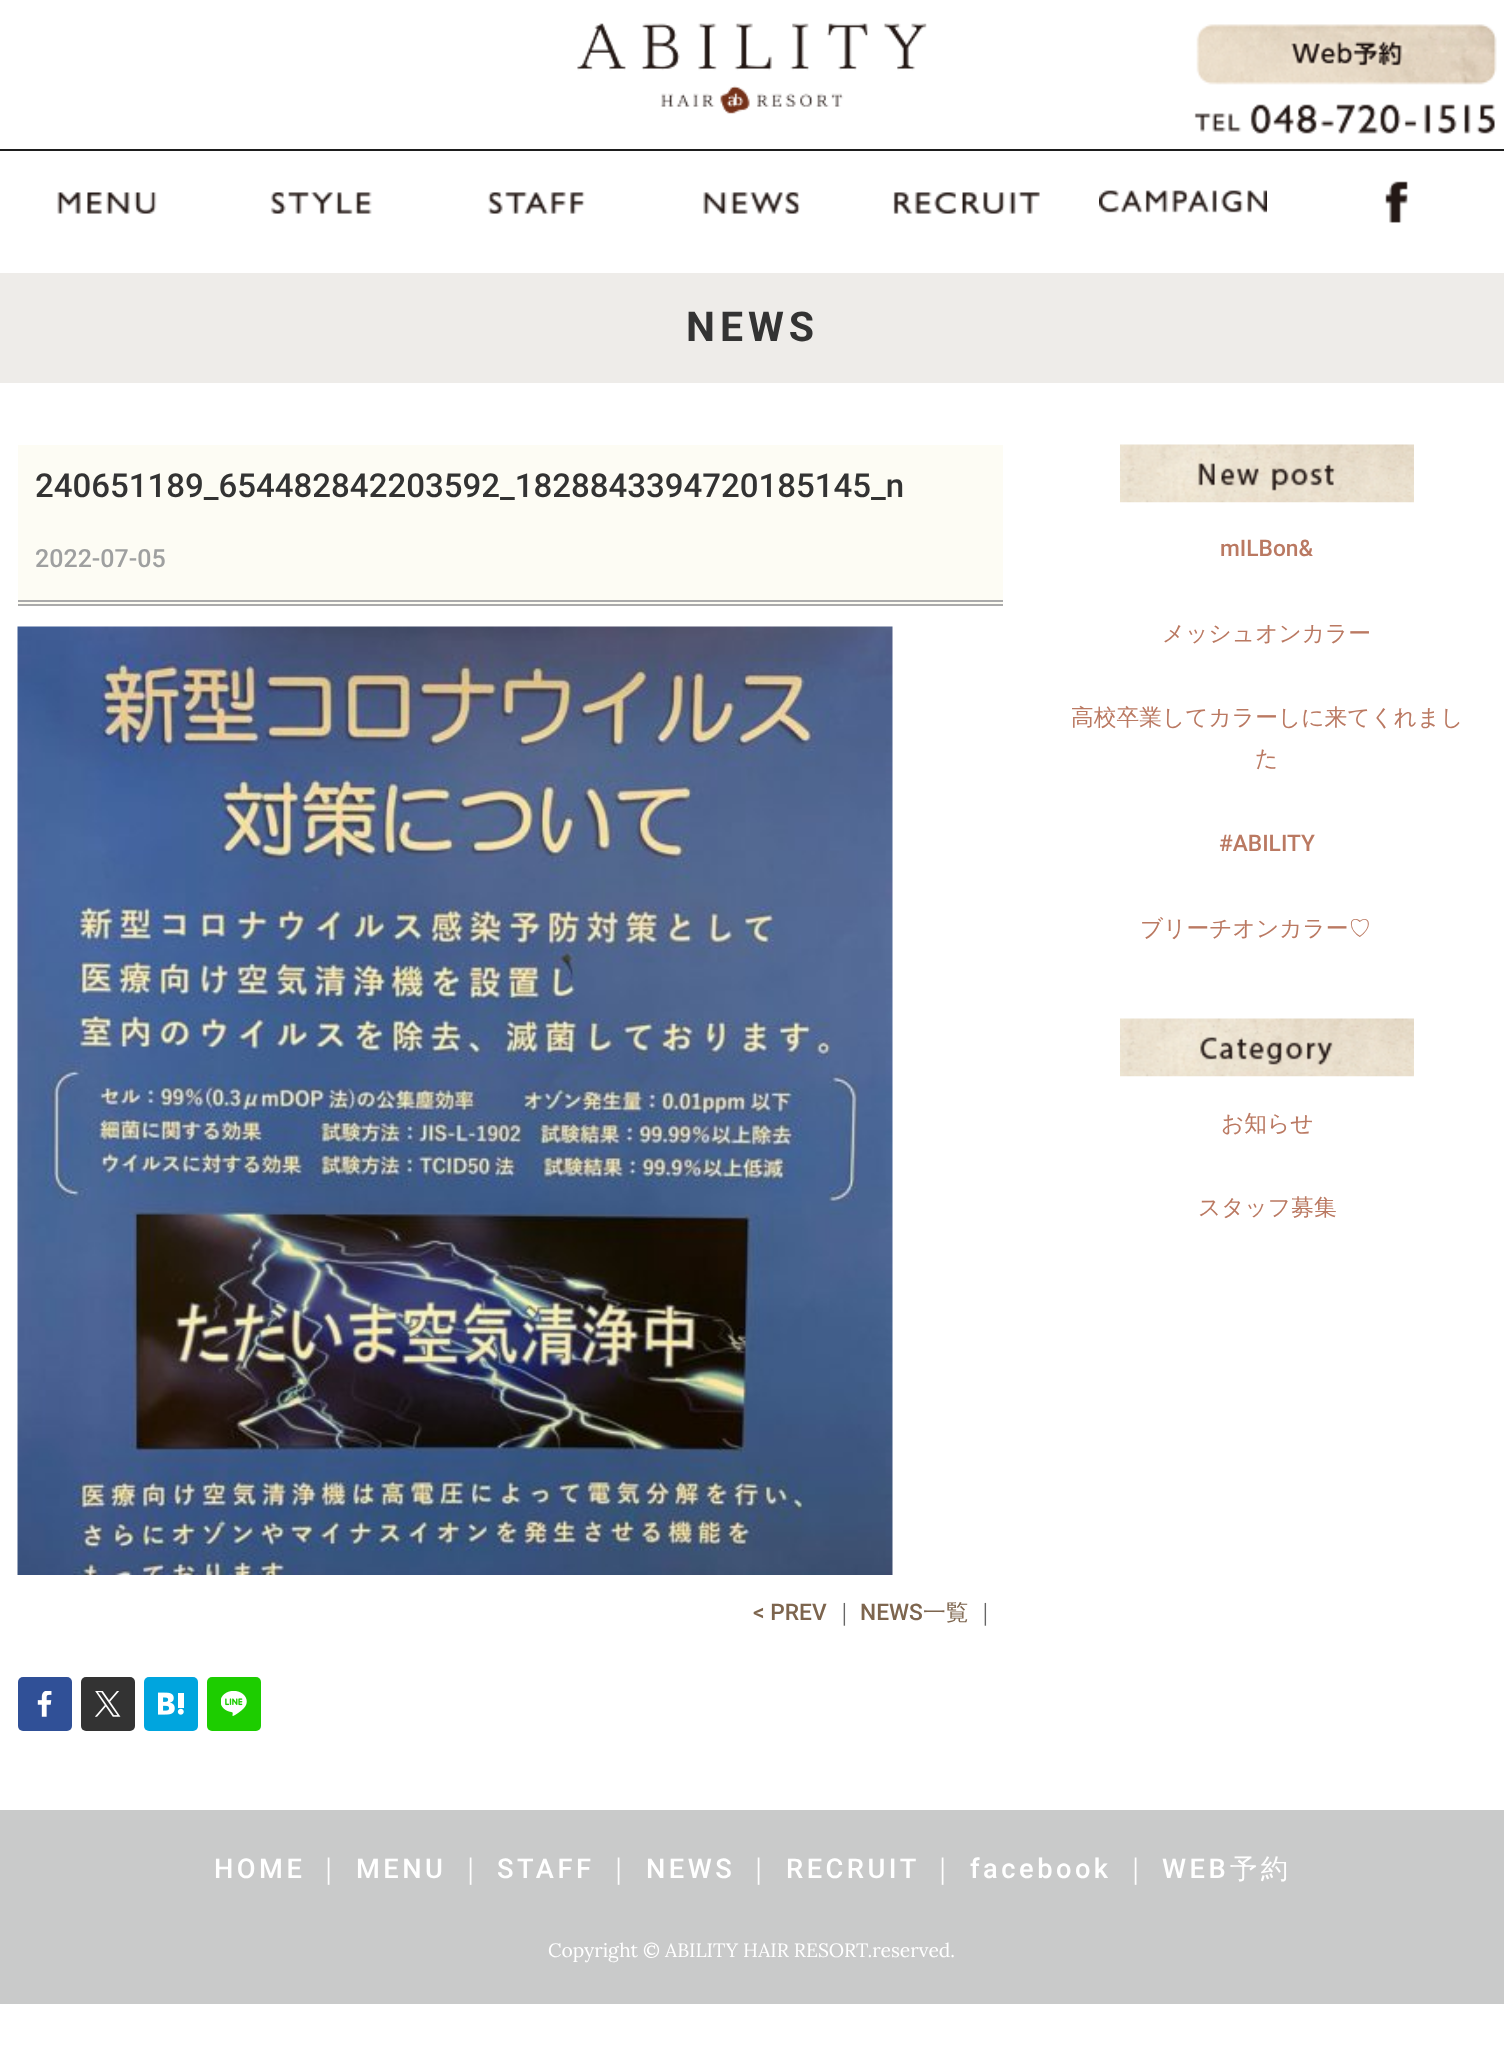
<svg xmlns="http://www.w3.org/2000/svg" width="1504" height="2055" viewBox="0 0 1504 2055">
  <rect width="100%" height="100%" fill="#ffffff"/>
  <image x="577" y="23" width="350" height="91" href="img1.png"/>
  <image x="1196" y="24" width="301" height="61" href="img2.png"/>
  <image x="1194" y="104" width="301" height="30" href="img3.png"/>
  <rect x="0" y="149" width="1504" height="2" fill="#1e1e1e"/>
  <image x="57" y="192" width="100" height="22" href="img4.png"/>
  <image x="270" y="192" width="102" height="22" href="img5.png"/>
  <image x="488" y="192" width="97" height="22" href="img6.png"/>
  <image x="703" y="192" width="97" height="22" href="img7.png"/>
  <image x="893" y="192" width="147" height="22" href="img8.png"/>
  <image x="1099" y="190" width="168" height="23" href="img9.png"/>
  <image x="1385" y="181" width="23" height="42" href="img10.png"/>
  <rect x="0" y="273" width="1504" height="110" fill="#eeece9"/>
  <text x="686" y="341" font-family="Roboto" font-size="41" font-weight="bold" letter-spacing="5" fill="#333333">NEWS</text>
  <rect x="18" y="445" width="985" height="159" fill="#fdfcf4"/>
  <rect x="18" y="600" width="985" height="2" fill="#aaaaaa"/>
  <rect x="18" y="604" width="985" height="2" fill="#aaaaaa"/>
  <text x="35" y="497" font-family="Roboto" font-size="33" font-weight="500" fill="#333333">240651189_654482842203592_1828843394720185145_n</text>
  <text x="35" y="567" font-family="Roboto" font-size="25" font-weight="500" fill="#9fa0a0">2022-07-05</text>
  <image x="17" y="626" width="876" height="949" href="img11.png"/>
  <text x="753" y="1620" font-family="Roboto" font-size="22.75" font-weight="500" fill="#7d654e">&lt; PREV</text>
  <text x="833" y="1620" font-family="WenQuanYi Zen Hei" font-size="22.75" font-weight="500" fill="#666666">｜</text>
  <text x="860" y="1620" font-family="Roboto" font-size="22.75" font-weight="500" fill="#7d654e">NEWS</text>
  <text x="923" y="1620" font-family="WenQuanYi Zen Hei" font-size="22.75" font-weight="500" fill="#7d654e">一覧</text>
  <text x="974" y="1620" font-family="WenQuanYi Zen Hei" font-size="22.75" font-weight="500" fill="#666666">｜</text>
  <rect x="18" y="1677" width="54" height="54" rx="5" fill="#305097"/>
  <image x="37" y="1691" width="15" height="26" href="img12.png"/>
  <rect x="81" y="1677" width="54" height="54" rx="5" fill="#333333"/>
  <image x="95" y="1691" width="26" height="26" href="img13.png"/>
  <rect x="144" y="1677" width="54" height="54" rx="5" fill="#00a5de"/>
  <image x="158" y="1692" width="26" height="23" href="img14.png"/>
  <rect x="207" y="1677" width="54" height="54" rx="5" fill="#1dcd00"/>
  <image x="221" y="1691" width="26" height="25" href="img15.png"/>
  <image x="1120" y="444" width="294" height="59" href="img16.png"/>
  <text x="1220" y="556" font-family="Roboto" font-size="22.75" font-weight="500" fill="#ba7962">mILBon&amp;</text>
  <text x="1162" y="641" font-family="WenQuanYi Zen Hei" font-size="22.75" font-weight="500" fill="#ba7962">メッシュオンカラー</text>
  <text x="1071" y="725" font-family="WenQuanYi Zen Hei" font-size="22.75" font-weight="500" fill="#ba7962">高校卒業してカラーしに来てくれまし</text>
  <text x="1255" y="766" font-family="WenQuanYi Zen Hei" font-size="22.75" font-weight="500" fill="#ba7962">た</text>
  <text x="1219" y="851" font-family="Roboto" font-size="22.75" font-weight="500" fill="#ba7962">#ABILITY</text>
  <text x="1140" y="936" font-family="WenQuanYi Zen Hei" font-size="22.75" font-weight="500" fill="#ba7962">ブリーチオンカラー♡゙️</text>
  <image x="1120" y="1018" width="294" height="59" href="img17.png"/>
  <text x="1221" y="1131" font-family="WenQuanYi Zen Hei" font-size="22.75" font-weight="500" fill="#ba7962">お知らせ</text>
  <text x="1198" y="1215" font-family="WenQuanYi Zen Hei" font-size="22.75" font-weight="500" fill="#ba7962">スタッフ募集</text>
  <rect x="0" y="1810" width="1504" height="194" fill="#c9caca"/>
  <text x="214" y="1878" font-family="Roboto" font-size="27.25" font-weight="500" letter-spacing="3.5" fill="#ffffff">HOME</text>
  <text x="315" y="1878" font-family="WenQuanYi Zen Hei" font-size="27.25" font-weight="500" letter-spacing="3.5" fill="#ffffff">｜</text>
  <text x="356" y="1878" font-family="Roboto" font-size="27.25" font-weight="500" letter-spacing="3.5" fill="#ffffff">MENU</text>
  <text x="457" y="1878" font-family="WenQuanYi Zen Hei" font-size="27.25" font-weight="500" letter-spacing="3.5" fill="#ffffff">｜</text>
  <text x="497" y="1878" font-family="Roboto" font-size="27.25" font-weight="500" letter-spacing="3.5" fill="#ffffff">STAFF</text>
  <text x="605" y="1878" font-family="WenQuanYi Zen Hei" font-size="27.25" font-weight="500" letter-spacing="3.5" fill="#ffffff">｜</text>
  <text x="646" y="1878" font-family="Roboto" font-size="27.25" font-weight="500" letter-spacing="3.5" fill="#ffffff">NEWS</text>
  <text x="745" y="1878" font-family="WenQuanYi Zen Hei" font-size="27.25" font-weight="500" letter-spacing="3.5" fill="#ffffff">｜</text>
  <text x="786" y="1878" font-family="Roboto" font-size="27.25" font-weight="500" letter-spacing="3.5" fill="#ffffff">RECRUIT</text>
  <text x="929" y="1878" font-family="WenQuanYi Zen Hei" font-size="27.25" font-weight="500" letter-spacing="3.5" fill="#ffffff">｜</text>
  <text x="970" y="1878" font-family="Roboto" font-size="27.25" font-weight="500" letter-spacing="3.5" fill="#ffffff">facebook</text>
  <text x="1122" y="1878" font-family="WenQuanYi Zen Hei" font-size="27.25" font-weight="500" letter-spacing="3.5" fill="#ffffff">｜</text>
  <text x="1162" y="1878" font-family="Roboto" font-size="27.25" font-weight="500" letter-spacing="3.5" fill="#ffffff">WEB</text>
  <text x="1230" y="1878" font-family="WenQuanYi Zen Hei" font-size="27.25" font-weight="500" letter-spacing="3.5" fill="#ffffff">予約</text>
  <text x="548" y="1957" font-family="Lora" font-size="19.3" fill="#ffffff">Copyright © ABILITY HAIR RESORT.reserved.</text>
</svg>
